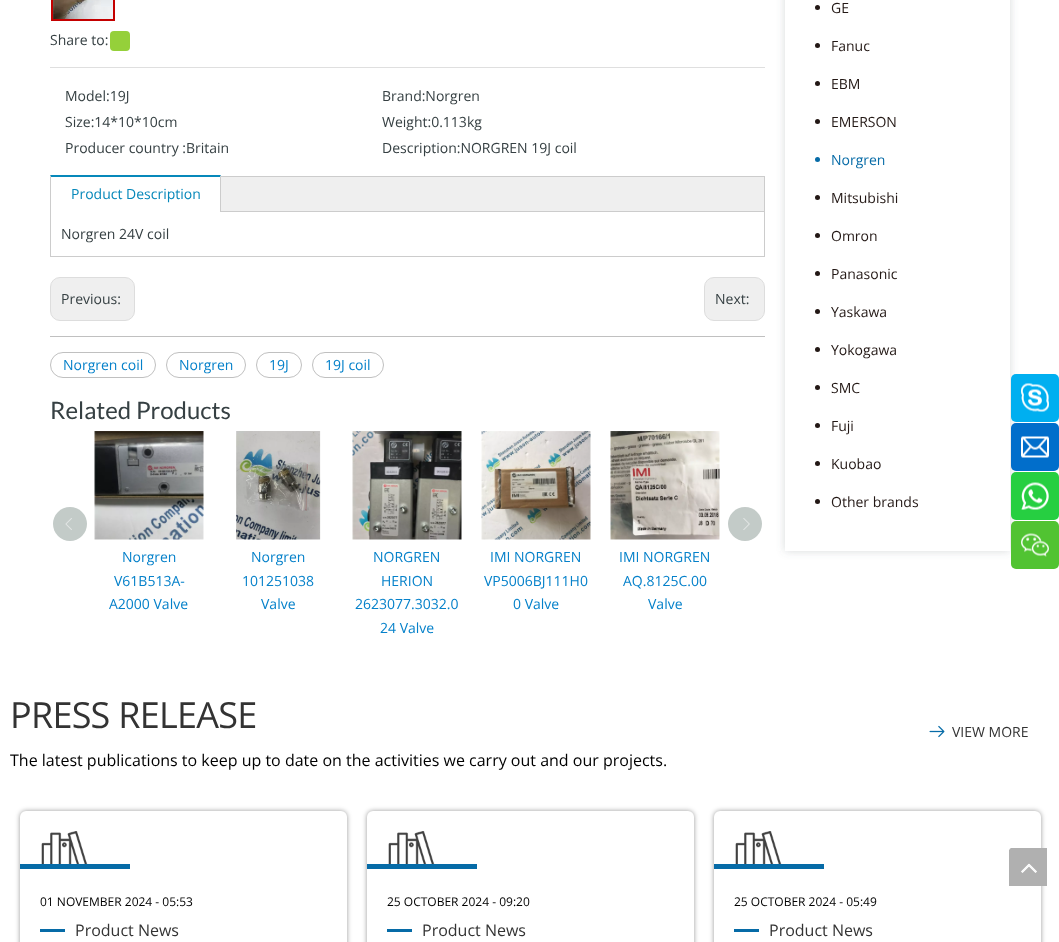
<svg xmlns="http://www.w3.org/2000/svg" width="1059" height="942" viewBox="0 0 1059 942">
  <defs>
    <clipPath id="clip1"><path d="M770 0H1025V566H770ZM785-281H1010V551H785Z" clip-rule="evenodd"/></clipPath>
    <filter id="blur1" x="-50%" y="-200%" width="200%" height="500%"><feGaussianBlur stdDeviation="4.5"/></filter>
    <filter id="blur2" x="-50%" y="-200%" width="200%" height="500%"><feGaussianBlur stdDeviation="2.5"/></filter>
  </defs>
  <rect width="100%" height="100%" fill="#ffffff"/>
  <rect x="52" y="-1" width="62" height="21" fill="none" stroke="#c40000" stroke-width="2"/>
  <image x="53" y="0" width="60" height="19" href="img1.png"/>
  <text x="50" y="45" font-family="Open Sans" font-size="14" fill="#364043">Share to:</text>
  <rect x="110" y="31" width="20" height="20" rx="4" fill="#95d03a"/>
  <rect x="50" y="67" width="715" height="1" fill="#dfdfdf"/>
  <text x="65" y="101" font-family="Open Sans" font-size="14" fill="#364043">Model:19J</text>
  <text x="382" y="101" font-family="Open Sans" font-size="14" fill="#364043">Brand:Norgren</text>
  <text x="65" y="127" font-family="Open Sans" font-size="14" fill="#364043">Size:14*10*10cm</text>
  <text x="382" y="127" font-family="Open Sans" font-size="14" fill="#364043">Weight:0.113kg</text>
  <text x="65" y="153" font-family="Open Sans" font-size="14" fill="#364043">Producer country :Britain</text>
  <text x="382" y="153" font-family="Open Sans" font-size="14" fill="#364043">Description:NORGREN 19J coil</text>
  <rect x="50.5" y="176.5" width="714" height="80" fill="none" stroke="#cccccc"/>
  <rect x="221" y="177" width="543" height="34" fill="#efefef"/>
  <rect x="221" y="211" width="543" height="1" fill="#cccccc"/>
  <rect x="50" y="176" width="171" height="36" fill="#ffffff"/>
  <path d="M50 175H221L220 177H51Z" fill="#0688ba"/>
  <path d="M221 175V212H220V177Z" fill="#cccccc"/>
  <path d="M50 212V175L51 177V212Z" fill="#cccccc"/>
  <text x="71" y="199" font-family="Open Sans" font-size="14" fill="#0688ba">Product Description</text>
  <text x="61" y="239" font-family="Open Sans" font-size="14" fill="#364043">Norgren 24V coil</text>
  <rect x="50.5" y="277.5" width="84" height="43" rx="9.5" fill="#efefef" stroke="#dddddd"/>
  <text x="61" y="304" font-family="Open Sans" font-size="14" fill="#364043">Previous:</text>
  <rect x="704.5" y="277.5" width="60" height="43" rx="9.5" fill="#efefef" stroke="#dddddd"/>
  <text x="715" y="304" font-family="Open Sans" font-size="14" fill="#364043">Next:</text>
  <rect x="50" y="336" width="715" height="1" fill="#c0c0c0"/>
  <rect x="50.5" y="352.5" width="105" height="25" rx="12.5" fill="none" stroke="#c0c0c0"/>
  <text x="63" y="370" font-family="Open Sans" font-size="14" fill="#0581ca">Norgren coil</text>
  <rect x="166.5" y="352.5" width="79" height="25" rx="12.5" fill="none" stroke="#c0c0c0"/>
  <text x="179" y="370" font-family="Open Sans" font-size="14" fill="#0581ca">Norgren</text>
  <rect x="256.5" y="352.5" width="45" height="25" rx="12.5" fill="none" stroke="#c0c0c0"/>
  <text x="269" y="370" font-family="Open Sans" font-size="14" fill="#0581ca">19J</text>
  <rect x="312.5" y="352.5" width="71" height="25" rx="12.5" fill="none" stroke="#c0c0c0"/>
  <text x="325" y="370" font-family="Open Sans" font-size="14" fill="#0581ca">19J coil</text>
  <text x="50" y="419" font-family="Lato" font-size="24" fill="#364043">Related Products</text>
  <circle cx="70" cy="524" r="17" fill="#c3cbc8"/>
  <image x="65" y="518" width="7" height="12" href="img2.png"/>
  <circle cx="745" cy="524" r="17" fill="#c3cbc8"/>
  <image x="743" y="518" width="7" height="12" href="img3.png"/>
  <image x="94" y="431" width="110" height="109" href="img4.png"/>
  <text x="122" y="562" font-family="Open Sans" font-size="14" fill="#0581ca">Norgren</text>
  <text x="114" y="586" font-family="Open Sans" font-size="14" fill="#0581ca">V61B513A-</text>
  <text x="109" y="609" font-family="Open Sans" font-size="14" fill="#0581ca">A2000 Valve</text>
  <image x="236" y="431" width="85" height="109" href="img5.png"/>
  <text x="251" y="562" font-family="Open Sans" font-size="14" fill="#0581ca">Norgren</text>
  <text x="242" y="586" font-family="Open Sans" font-size="14" fill="#0581ca">101251038</text>
  <text x="261" y="609" font-family="Open Sans" font-size="14" fill="#0581ca">Valve</text>
  <image x="352" y="431" width="110" height="109" href="img6.png"/>
  <text x="373" y="562" font-family="Open Sans" font-size="14" fill="#0581ca">NORGREN</text>
  <text x="381" y="586" font-family="Open Sans" font-size="14" fill="#0581ca">HERION</text>
  <text x="355" y="609" font-family="Open Sans" font-size="14" fill="#0581ca">2623077.3032.0</text>
  <text x="380" y="633" font-family="Open Sans" font-size="14" fill="#0581ca">24 Valve</text>
  <image x="481" y="431" width="110" height="109" href="img7.png"/>
  <text x="490" y="562" font-family="Open Sans" font-size="14" fill="#0581ca">IMI NORGREN</text>
  <text x="484" y="586" font-family="Open Sans" font-size="14" fill="#0581ca">VP5006BJ111H0</text>
  <text x="513" y="609" font-family="Open Sans" font-size="14" fill="#0581ca">0 Valve</text>
  <image x="610" y="431" width="110" height="109" href="img8.png"/>
  <text x="619" y="562" font-family="Open Sans" font-size="14" fill="#0581ca">IMI NORGREN</text>
  <text x="623" y="586" font-family="Open Sans" font-size="14" fill="#0581ca">AQ.8125C.00</text>
  <text x="648" y="609" font-family="Open Sans" font-size="14" fill="#0581ca">Valve</text>
  <g clip-path="url(#clip1)">
    <rect x="785" y="-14" width="225" height="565" fill="#636c72" fill-opacity="0.26" filter="url(#blur1)"/>
  </g>
  <circle cx="817.5" cy="7.5" r="2.5" fill="#231815"/>
  <text x="831" y="13" font-family="Open Sans" font-size="14" fill="#231815">GE</text>
  <circle cx="817.5" cy="45.5" r="2.5" fill="#231815"/>
  <text x="831" y="51" font-family="Open Sans" font-size="14" fill="#231815">Fanuc</text>
  <circle cx="817.5" cy="83.5" r="2.5" fill="#231815"/>
  <text x="831" y="89" font-family="Open Sans" font-size="14" fill="#231815">EBM</text>
  <circle cx="817.5" cy="121.5" r="2.5" fill="#231815"/>
  <text x="831" y="127" font-family="Open Sans" font-size="14" fill="#231815">EMERSON</text>
  <circle cx="817.5" cy="159.5" r="2.5" fill="#066ba7"/>
  <text x="831" y="165" font-family="Open Sans" font-size="14" fill="#066ba7">Norgren</text>
  <circle cx="817.5" cy="197.5" r="2.5" fill="#231815"/>
  <text x="831" y="203" font-family="Open Sans" font-size="14" fill="#231815">Mitsubishi</text>
  <circle cx="817.5" cy="235.5" r="2.5" fill="#231815"/>
  <text x="831" y="241" font-family="Open Sans" font-size="14" fill="#231815">Omron</text>
  <circle cx="817.5" cy="273.5" r="2.5" fill="#231815"/>
  <text x="831" y="279" font-family="Open Sans" font-size="14" fill="#231815">Panasonic</text>
  <circle cx="817.5" cy="311.5" r="2.5" fill="#231815"/>
  <text x="831" y="317" font-family="Open Sans" font-size="14" fill="#231815">Yaskawa</text>
  <circle cx="817.5" cy="349.5" r="2.5" fill="#231815"/>
  <text x="831" y="355" font-family="Open Sans" font-size="14" fill="#231815">Yokogawa</text>
  <circle cx="817.5" cy="387.5" r="2.5" fill="#231815"/>
  <text x="831" y="393" font-family="Open Sans" font-size="14" fill="#231815">SMC</text>
  <circle cx="817.5" cy="425.5" r="2.5" fill="#231815"/>
  <text x="831" y="431" font-family="Open Sans" font-size="14" fill="#231815">Fuji</text>
  <circle cx="817.5" cy="463.5" r="2.5" fill="#231815"/>
  <text x="831" y="469" font-family="Open Sans" font-size="14" fill="#231815">Kuobao</text>
  <circle cx="817.5" cy="501.5" r="2.5" fill="#231815"/>
  <text x="831" y="507" font-family="Open Sans" font-size="14" fill="#231815">Other brands</text>
  <text x="10" y="728" font-family="Open Sans" font-size="36" letter-spacing="-0.75" fill="#333333">PRESS RELEASE</text>
  <text x="10" y="766" font-family="Open Sans" font-size="16" fill="#000000">The latest publications to keep up to date on the activities we carry out and our projects.</text>
  <image x="929" y="725" width="16" height="13" href="img9.png"/>
  <text x="952" y="737" font-family="Open Sans" font-size="14" fill="#333333">VIEW MORE</text>
  <rect x="20" y="811" width="327" height="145" rx="6" fill="#000000" fill-opacity="0.4" filter="url(#blur2)"/>
  <rect x="20" y="811" width="327" height="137" rx="6" fill="#ffffff"/>
  <image x="41" y="831" width="47" height="33" href="img10.png"/>
  <rect x="20" y="864" width="110" height="5" fill="#066ba7"/>
  <text x="40" y="906" font-family="Open Sans" font-size="12" fill="#000000">01 NOVEMBER 2024 - 05:53</text>
  <rect x="40" y="929" width="25" height="3" fill="#066ba7"/>
  <text x="75" y="936" font-family="Open Sans" font-size="16" fill="#333333">Product News</text>
  <rect x="367" y="811" width="327" height="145" rx="6" fill="#000000" fill-opacity="0.4" filter="url(#blur2)"/>
  <rect x="367" y="811" width="327" height="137" rx="6" fill="#ffffff"/>
  <image x="388" y="831" width="47" height="33" href="img10.png"/>
  <rect x="367" y="864" width="110" height="5" fill="#066ba7"/>
  <text x="387" y="906" font-family="Open Sans" font-size="12" fill="#000000">25 OCTOBER 2024 - 09:20</text>
  <rect x="387" y="929" width="25" height="3" fill="#066ba7"/>
  <text x="422" y="936" font-family="Open Sans" font-size="16" fill="#333333">Product News</text>
  <rect x="714" y="811" width="327" height="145" rx="6" fill="#000000" fill-opacity="0.4" filter="url(#blur2)"/>
  <rect x="714" y="811" width="327" height="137" rx="6" fill="#ffffff"/>
  <image x="735" y="831" width="47" height="33" href="img10.png"/>
  <rect x="714" y="864" width="110" height="5" fill="#066ba7"/>
  <text x="734" y="906" font-family="Open Sans" font-size="12" fill="#000000">25 OCTOBER 2024 - 05:49</text>
  <rect x="734" y="929" width="25" height="3" fill="#066ba7"/>
  <text x="769" y="936" font-family="Open Sans" font-size="16" fill="#333333">Product News</text>
  <rect x="1011" y="374" width="48" height="48" rx="5" fill="#00aff0"/>
  <image x="1021" y="383" width="28" height="29" href="img11.png"/>
  <rect x="1011" y="423" width="48" height="48" rx="5" fill="#016ecb"/>
  <image x="1021" y="436" width="28" height="22" href="img12.png"/>
  <rect x="1011" y="472" width="48" height="48" rx="5" fill="#26cf41"/>
  <image x="1021" y="482" width="28" height="28" href="img13.png"/>
  <rect x="1011" y="521" width="48" height="48" rx="5" fill="#51c332"/>
  <image x="1021" y="533" width="28" height="24" href="img14.png"/>
  <image x="1009" y="848" width="38" height="38" href="img15.png"/>
</svg>
